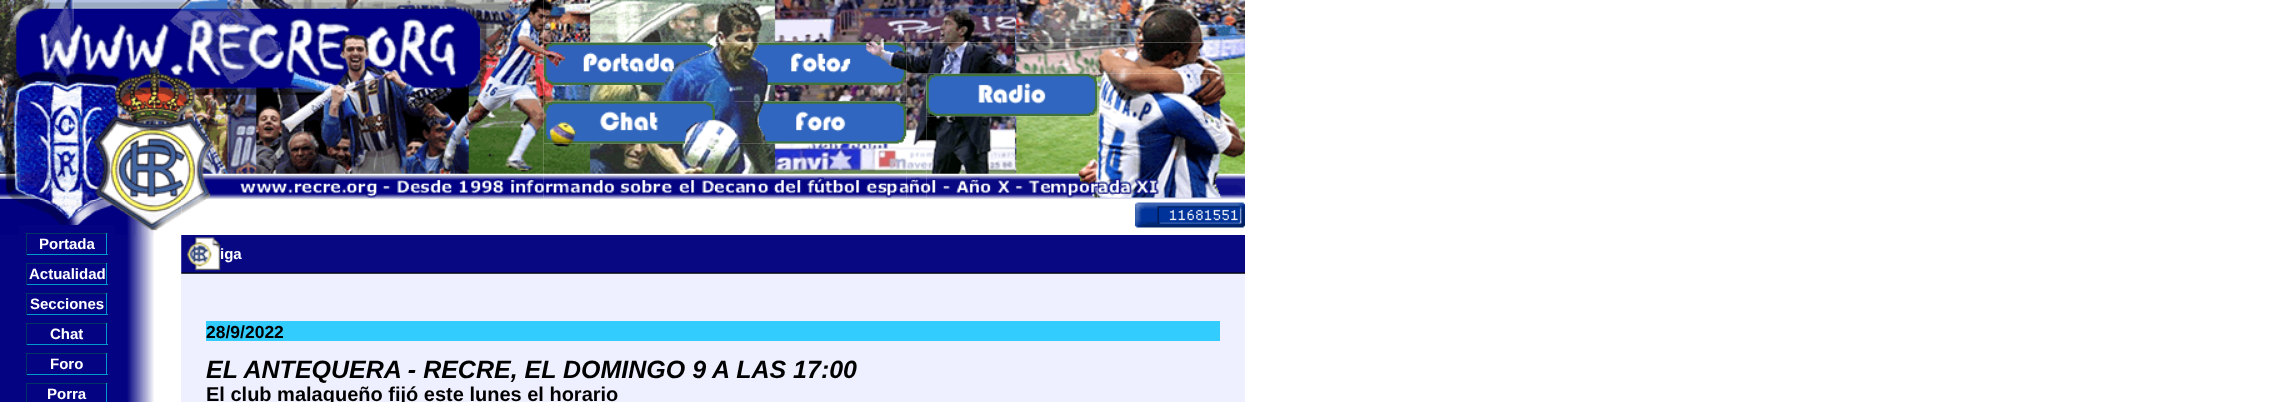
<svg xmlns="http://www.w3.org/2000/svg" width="2287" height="402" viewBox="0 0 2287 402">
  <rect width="100%" height="100%" fill="#ffffff"/>
  <image x="1135" y="202" width="110" height="26" href="img1.png"/>
  <image x="0" y="200" width="182" height="35" href="img18.png"/>
  <rect x="19" y="225" width="96" height="10" fill="#040482"/>
  <rect x="26" y="233" width="82" height="1" fill="#003366"/>
  <image x="0" y="235" width="154" height="167" href="img20.png"/>
  <rect x="106" y="233" width="1" height="22" fill="#0099cc"/>
  <rect x="26" y="254" width="82" height="1" fill="#0099cc"/>
  <rect x="26" y="233" width="1" height="22" fill="#003366"/>
  <text x="39" y="249" font-family="Liberation Sans" font-size="15" font-weight="bold" fill="#ffffff">Portada</text>
  <rect x="26" y="263" width="82" height="1" fill="#003366"/>
  <rect x="106" y="263" width="1" height="22" fill="#0099cc"/>
  <rect x="26" y="284" width="82" height="1" fill="#0099cc"/>
  <rect x="26" y="263" width="1" height="22" fill="#003366"/>
  <text x="29" y="279" font-family="Liberation Sans" font-size="15" font-weight="bold" fill="#ffffff">Actualidad</text>
  <rect x="26" y="293" width="82" height="1" fill="#003366"/>
  <rect x="106" y="293" width="1" height="22" fill="#0099cc"/>
  <rect x="26" y="314" width="82" height="1" fill="#0099cc"/>
  <rect x="26" y="293" width="1" height="22" fill="#003366"/>
  <text x="30" y="309" font-family="Liberation Sans" font-size="15" font-weight="bold" fill="#ffffff">Secciones</text>
  <rect x="26" y="323" width="82" height="1" fill="#003366"/>
  <rect x="106" y="323" width="1" height="22" fill="#0099cc"/>
  <rect x="26" y="344" width="82" height="1" fill="#0099cc"/>
  <rect x="26" y="323" width="1" height="22" fill="#003366"/>
  <text x="50" y="339" font-family="Liberation Sans" font-size="15" font-weight="bold" fill="#ffffff">Chat</text>
  <rect x="26" y="353" width="82" height="1" fill="#003366"/>
  <rect x="106" y="353" width="1" height="22" fill="#0099cc"/>
  <rect x="26" y="374" width="82" height="1" fill="#0099cc"/>
  <rect x="26" y="353" width="1" height="22" fill="#003366"/>
  <text x="50" y="369" font-family="Liberation Sans" font-size="15" font-weight="bold" fill="#ffffff">Foro</text>
  <rect x="26" y="383" width="82" height="1" fill="#003366"/>
  <rect x="106" y="383" width="1" height="19" fill="#0099cc"/>
  <rect x="26" y="383" width="1" height="19" fill="#003366"/>
  <text x="47" y="399" font-family="Liberation Sans" font-size="15" font-weight="bold" fill="#ffffff">Porra</text>
  <image x="0" y="0" width="544" height="200" href="img2.png"/>
  <image x="543" y="0" width="702" height="43" href="img3.png"/>
  <image x="543" y="42" width="172" height="43" href="img4.png"/>
  <image x="715" y="42" width="20" height="157" href="img5.png"/>
  <image x="735" y="42" width="172" height="43" href="img6.png"/>
  <image x="906" y="42" width="339" height="32" href="img7.png"/>
  <image x="543" y="85" width="172" height="17" href="img8.png"/>
  <image x="906" y="73" width="21" height="126" href="img10.png"/>
  <image x="735" y="85" width="172" height="17" href="img9.png"/>
  <image x="926" y="73" width="172" height="44" href="img11.png"/>
  <image x="1097" y="73" width="148" height="126" href="img12.png"/>
  <image x="543" y="101" width="172" height="43" href="img13.png"/>
  <image x="735" y="101" width="172" height="43" href="img14.png"/>
  <image x="926" y="116" width="172" height="83" href="img15.png"/>
  <image x="543" y="143" width="172" height="56" href="img16.png"/>
  <image x="735" y="143" width="172" height="56" href="img17.png"/>
  <image x="181" y="200" width="24" height="14" href="img19.png"/>
  <rect x="181" y="235" width="1064" height="167" fill="#eff0ff"/>
  <image x="181" y="235" width="1064" height="39" href="img21.png"/>
  <text x="220" y="259" font-family="Liberation Sans" font-size="15" font-weight="bold" fill="#ffffff">iga</text>
  <rect x="206" y="321" width="1014" height="20" fill="#33ccff"/>
  <text x="206" y="338" font-family="Liberation Sans" font-size="17.5" font-weight="bold" fill="#000000">28/9/2022</text>
  <text x="206" y="378" font-family="Liberation Sans" font-size="25" font-weight="bold" font-style="italic" fill="#000000">EL ANTEQUERA - RECRE, EL DOMINGO 9 A LAS 17:00</text>
  <text x="206" y="401" font-family="Liberation Sans" font-size="20" font-weight="bold" fill="#000000">El club malagueño fijó este lunes el horario</text>
</svg>
